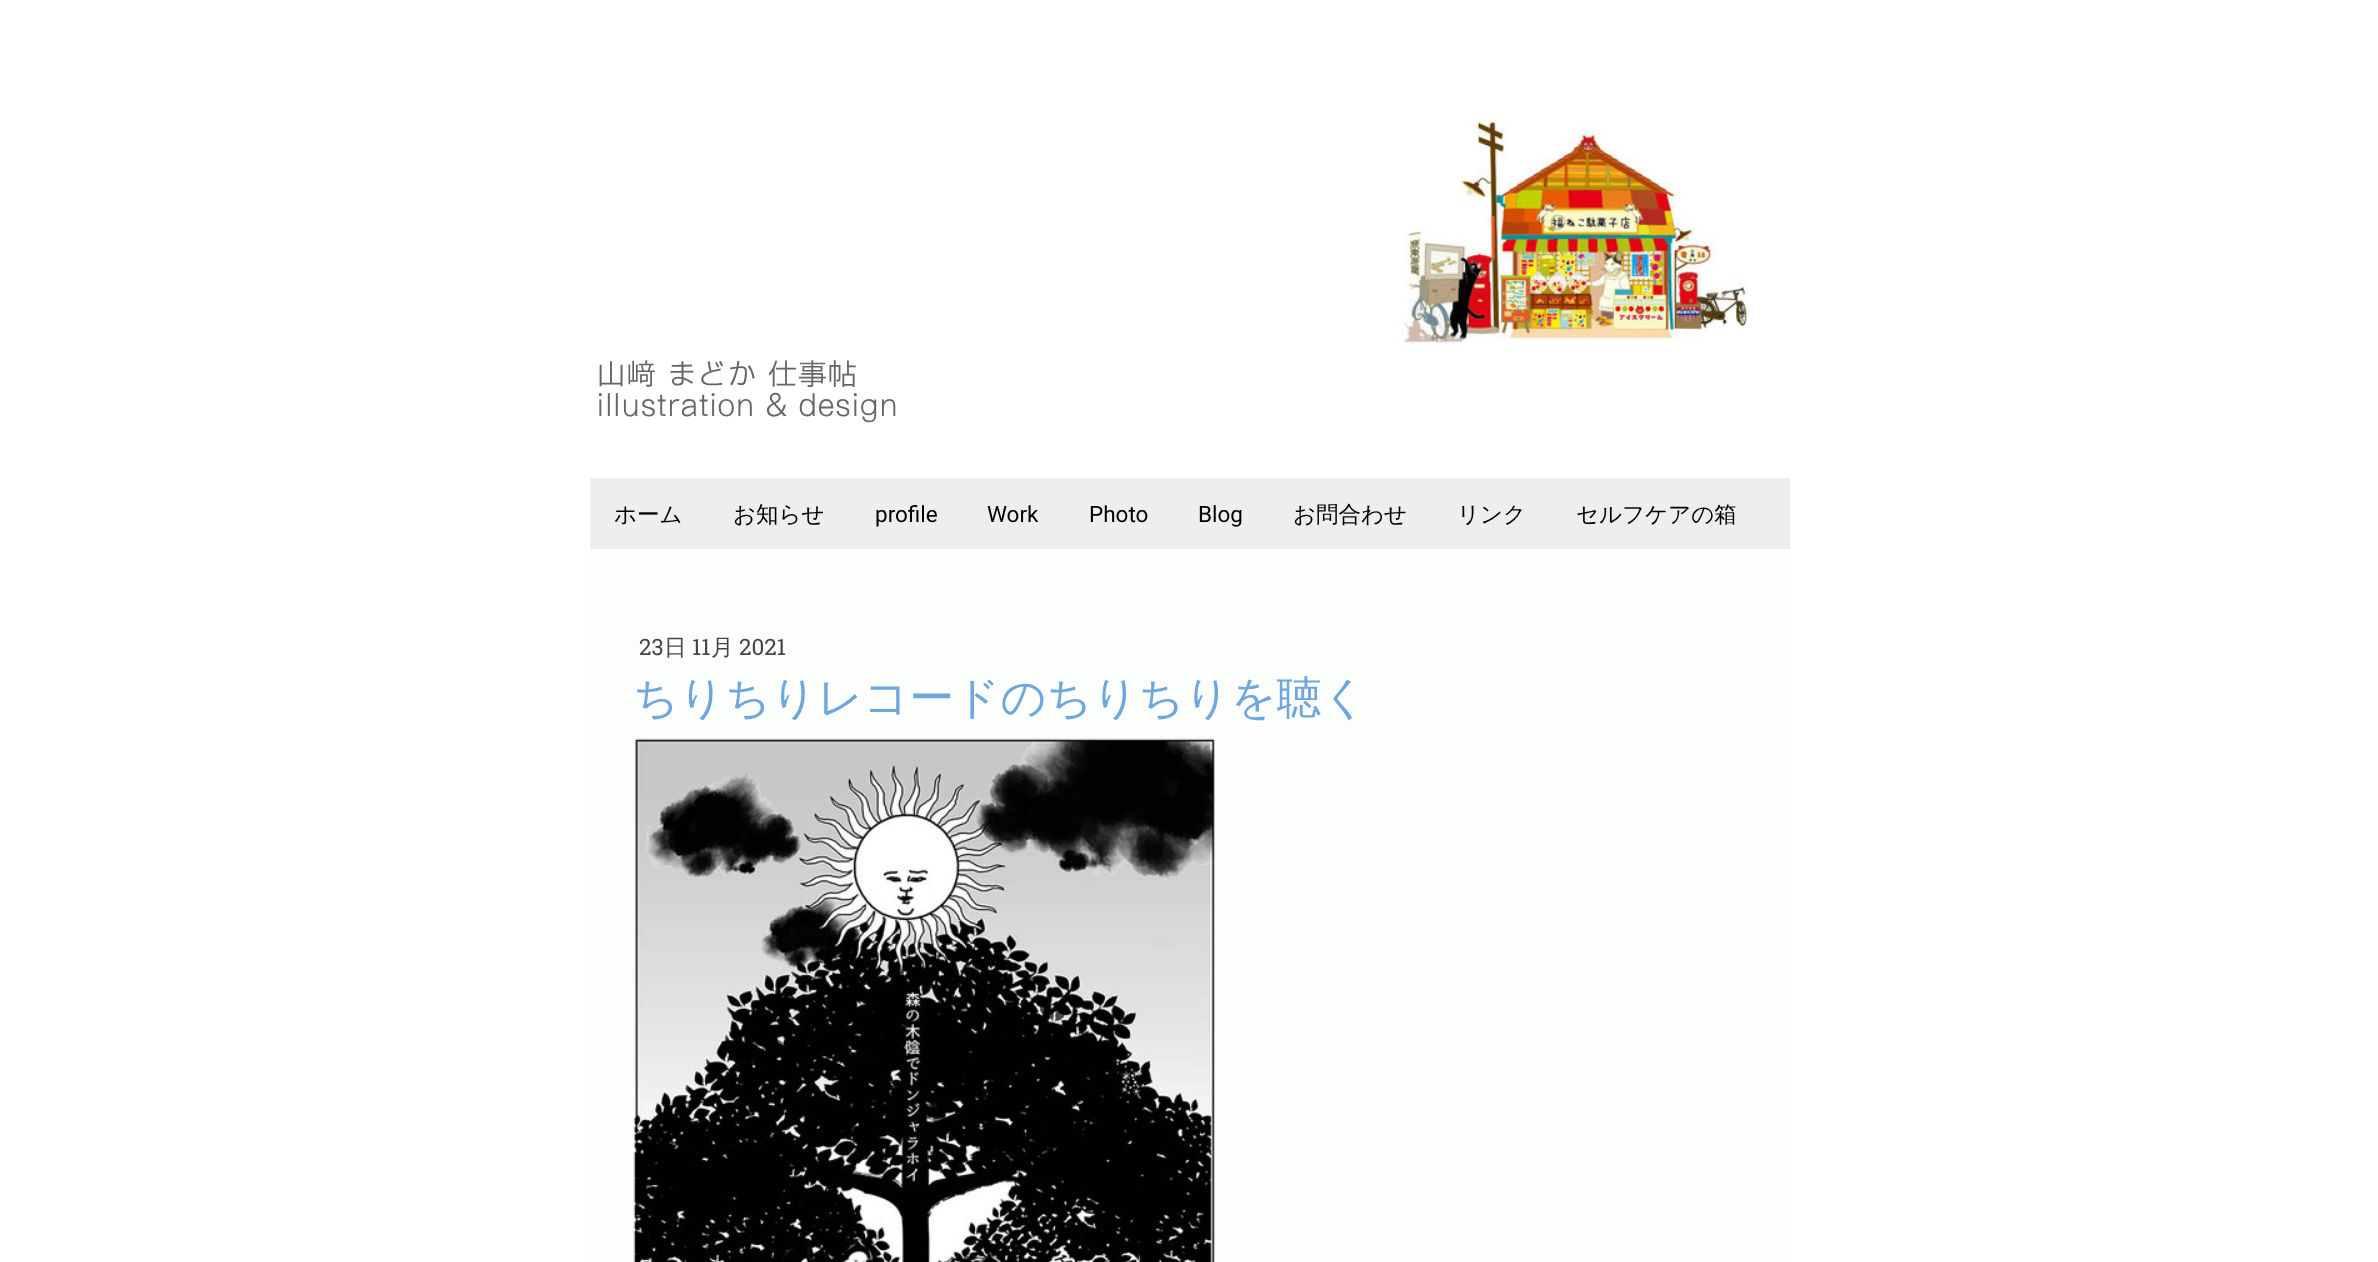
<svg xmlns="http://www.w3.org/2000/svg" width="2378" height="1262" viewBox="0 0 2378 1262">
  <rect width="100%" height="100%" fill="#ffffff"/>
  <image x="1398" y="118" width="351" height="228" href="img1.png"/>
  <text x="596" y="385" font-family="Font" font-size="30" fill="#666666">山﨑 まどか 仕事帖</text>
  <text x="596" y="416" font-family="Font" font-size="30" fill="#666666">illustration &amp; design</text>
  <rect x="590" y="478" width="1200" height="71" fill="#eeeeee"/>
  <text x="614" y="522" font-family="WenQuanYi Zen Hei" font-size="22.5" font-weight="500" fill="#000000">ホーム</text>
  <text x="733" y="522" font-family="WenQuanYi Zen Hei" font-size="22.5" font-weight="500" fill="#000000">お知らせ</text>
  <text x="875" y="522" font-family="Roboto" font-size="22.5" fill="#000000">profile</text>
  <text x="987" y="522" font-family="Roboto" font-size="22.5" fill="#000000">Work</text>
  <text x="1089" y="522" font-family="Roboto" font-size="22.5" fill="#000000">Photo</text>
  <text x="1198" y="522" font-family="Roboto" font-size="22.5" fill="#000000">Blog</text>
  <text x="1293" y="522" font-family="WenQuanYi Zen Hei" font-size="22.5" font-weight="500" fill="#000000">お問合わせ</text>
  <text x="1457" y="522" font-family="WenQuanYi Zen Hei" font-size="22.5" font-weight="500" fill="#000000">リンク</text>
  <text x="1576" y="522" font-family="WenQuanYi Zen Hei" font-size="22.5" font-weight="500" fill="#000000">セルフケアの箱</text>
  <rect x="590" y="549" width="1200" height="713" fill="#fcfefc"/>
  <text x="639" y="655" font-family="Roboto Slab" font-size="22.5" fill="#434745">23</text>
  <text x="664" y="655" font-family="WenQuanYi Zen Hei" font-size="22.5" font-weight="500" fill="#434745">日</text>
  <text x="692" y="655" font-family="Roboto Slab" font-size="22.5" fill="#434745">11</text>
  <text x="711" y="655" font-family="WenQuanYi Zen Hei" font-size="22.5" font-weight="500" fill="#434745">月</text>
  <text x="739" y="655" font-family="Roboto Slab" font-size="22.5" fill="#434745">2021</text>
  <text x="633" y="713" font-family="WenQuanYi Zen Hei" font-size="45" font-weight="500" fill="#6da7de">ちりちりレコードのちりちりを聴く</text>
  <image x="633" y="738" width="582" height="524" href="img2.png"/>
</svg>
